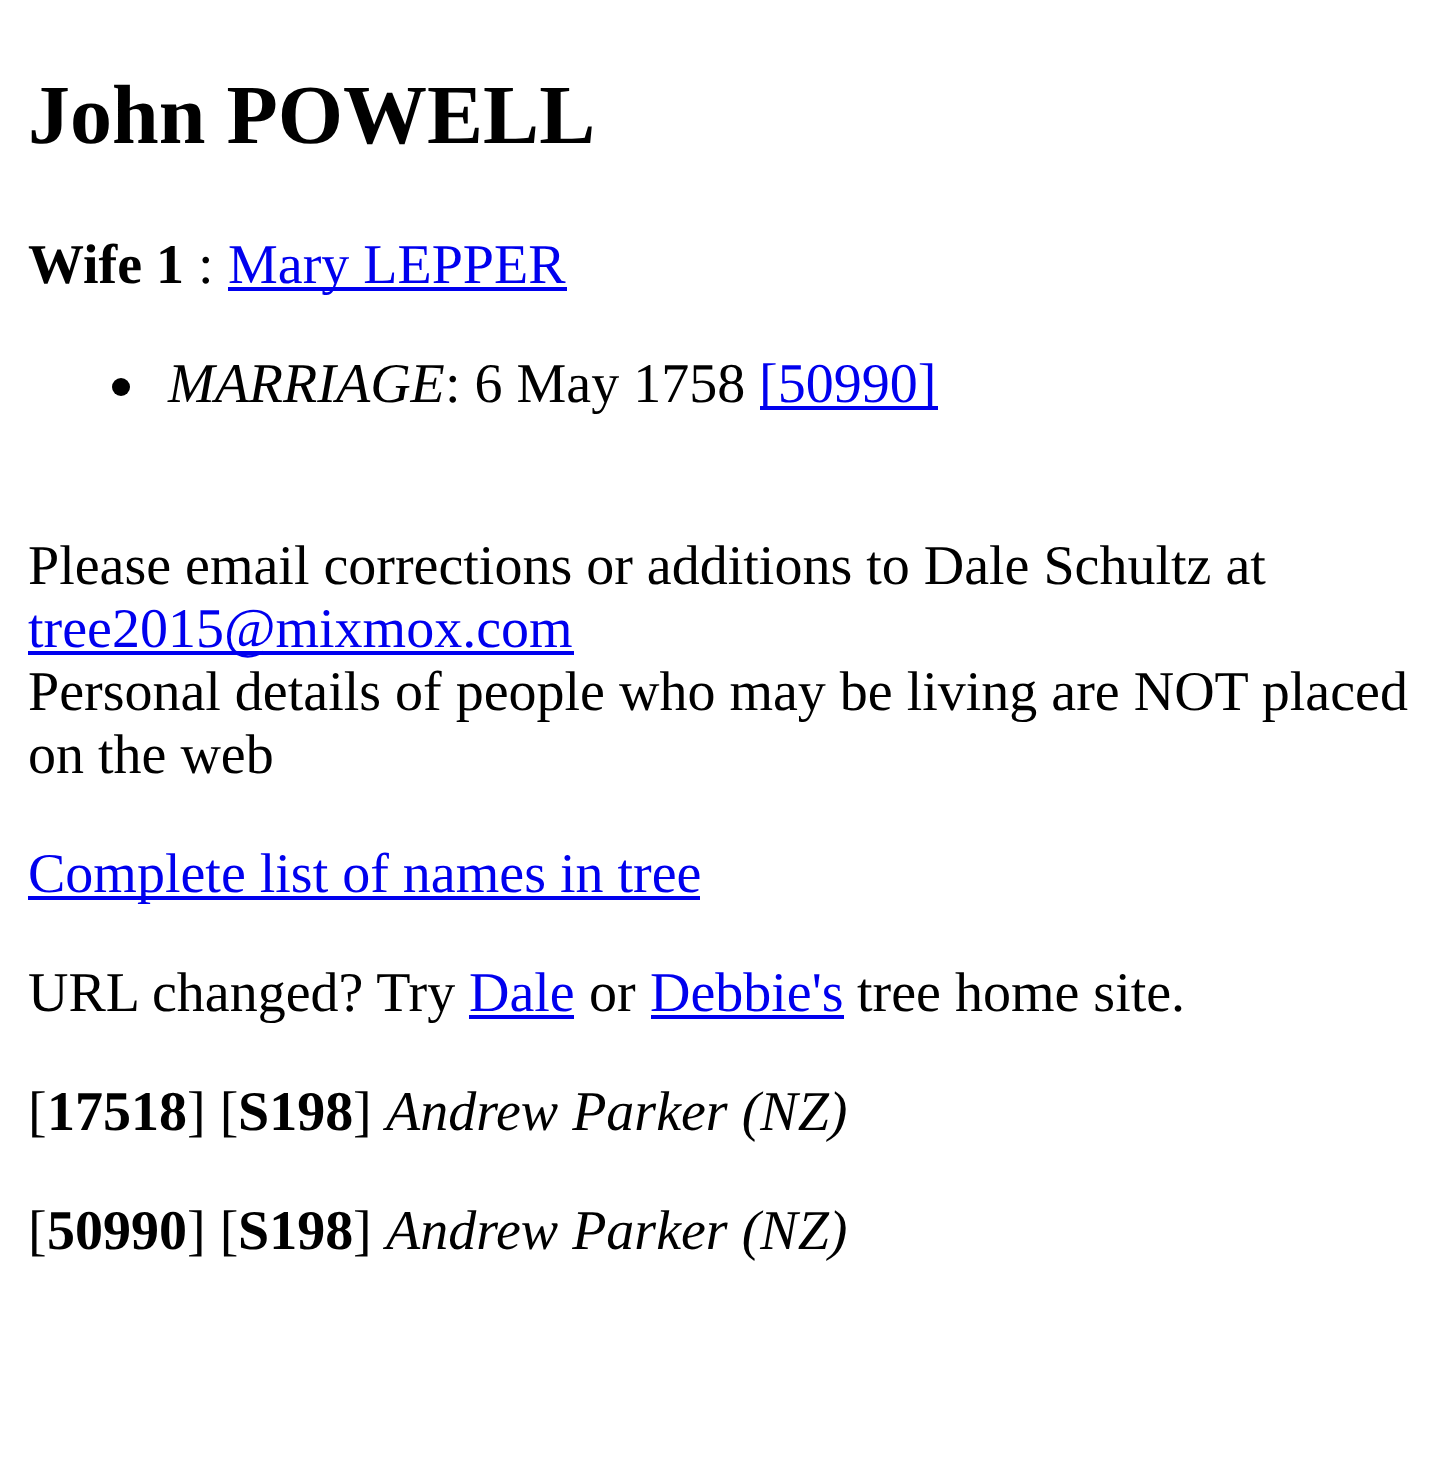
<svg xmlns="http://www.w3.org/2000/svg" width="1440" height="1464" viewBox="0 0 1440 1464">
  <rect width="100%" height="100%" fill="#ffffff"/>
  <text x="28" y="143" font-family="Liberation Serif" font-size="84" font-weight="bold" fill="#000000">John POWELL</text>
  <text x="28" y="283" font-family="Liberation Serif" font-size="56" font-weight="bold" fill="#000000">Wife 1</text>
  <text x="198" y="283" font-family="Liberation Serif" font-size="56" fill="#000000">:</text>
  <rect x="228" y="287" width="339" height="4" fill="#0000ee"/>
  <text x="228" y="283" font-family="Liberation Serif" font-size="56" fill="#0000ee">Mary LEPPER</text>
  <circle cx="121" cy="387" r="9" fill="#000000"/>
  <text x="168" y="402" font-family="Liberation Serif" font-size="56" font-style="italic" fill="#000000">MARRIAGE</text>
  <text x="445" y="402" font-family="Liberation Serif" font-size="56" fill="#000000">: 6 May 1758</text>
  <rect x="760" y="406" width="178" height="4" fill="#0000ee"/>
  <text x="759" y="402" font-family="Liberation Serif" font-size="56" fill="#0000ee">[50990]</text>
  <text x="28" y="584" font-family="Liberation Serif" font-size="56" fill="#000000">Please email corrections or additions to Dale Schultz at</text>
  <rect x="28" y="651" width="546" height="4" fill="#0000ee"/>
  <text x="28" y="647" font-family="Liberation Serif" font-size="56" fill="#0000ee">tree2015@mixmox.com</text>
  <text x="28" y="710" font-family="Liberation Serif" font-size="56" fill="#000000">Personal details of people who may be living are NOT placed</text>
  <text x="28" y="773" font-family="Liberation Serif" font-size="56" fill="#000000">on the web</text>
  <rect x="28" y="896" width="672" height="4" fill="#0000ee"/>
  <text x="28" y="892" font-family="Liberation Serif" font-size="56" fill="#0000ee">Complete list of names in tree</text>
  <text x="28" y="1011" font-family="Liberation Serif" font-size="56" fill="#000000">URL changed? Try</text>
  <text x="469" y="1011" font-family="Liberation Serif" font-size="56" fill="#0000ee">Dale</text>
  <rect x="469" y="1015" width="105" height="4" fill="#0000ee"/>
  <text x="589" y="1011" font-family="Liberation Serif" font-size="56" fill="#000000">or</text>
  <text x="650" y="1011" font-family="Liberation Serif" font-size="56" fill="#0000ee">Debbie's</text>
  <rect x="651" y="1015" width="193" height="4" fill="#0000ee"/>
  <text x="857" y="1011" font-family="Liberation Serif" font-size="56" fill="#000000">tree home site.</text>
  <text x="28" y="1130" font-family="Liberation Serif" font-size="56" fill="#000000">[</text>
  <text x="47" y="1130" font-family="Liberation Serif" font-size="56" font-weight="bold" fill="#000000">17518</text>
  <text x="187" y="1130" font-family="Liberation Serif" font-size="56" fill="#000000">] [</text>
  <text x="238" y="1130" font-family="Liberation Serif" font-size="56" font-weight="bold" fill="#000000">S198</text>
  <text x="353" y="1130" font-family="Liberation Serif" font-size="56" fill="#000000">]</text>
  <text x="386" y="1130" font-family="Liberation Serif" font-size="56" font-style="italic" fill="#000000">Andrew Parker (NZ)</text>
  <text x="28" y="1249" font-family="Liberation Serif" font-size="56" fill="#000000">[</text>
  <text x="47" y="1249" font-family="Liberation Serif" font-size="56" font-weight="bold" fill="#000000">50990</text>
  <text x="187" y="1249" font-family="Liberation Serif" font-size="56" fill="#000000">] [</text>
  <text x="238" y="1249" font-family="Liberation Serif" font-size="56" font-weight="bold" fill="#000000">S198</text>
  <text x="353" y="1249" font-family="Liberation Serif" font-size="56" fill="#000000">]</text>
  <text x="386" y="1249" font-family="Liberation Serif" font-size="56" font-style="italic" fill="#000000">Andrew Parker (NZ)</text>
</svg>
